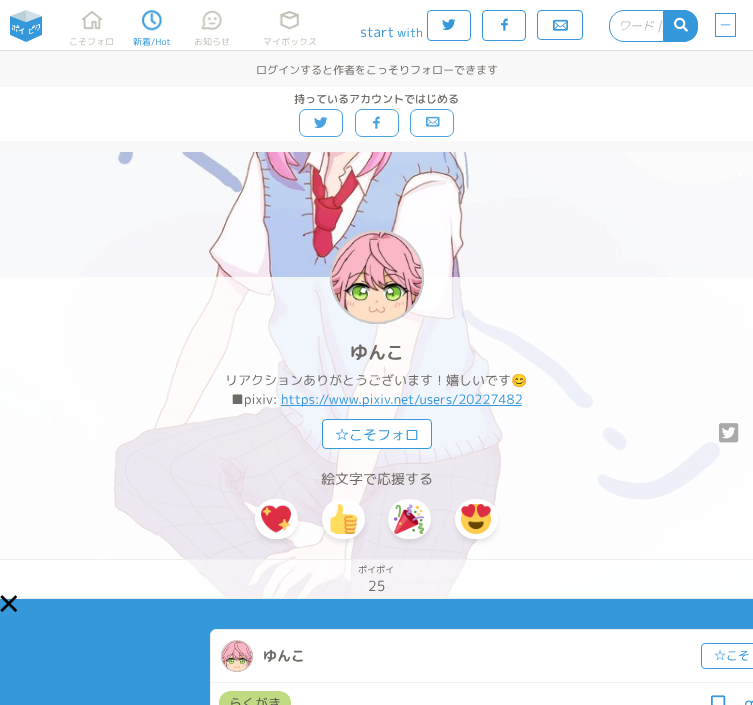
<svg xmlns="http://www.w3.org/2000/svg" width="753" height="705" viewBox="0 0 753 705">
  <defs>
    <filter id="blur1" x="-50%" y="-200%" width="200%" height="500%"><feGaussianBlur stdDeviation="2"/></filter>
  </defs>
  <rect width="100%" height="100%" fill="#3498db"/>
  <rect x="0" y="0" width="753" height="50" fill="#ffffff"/>
  <rect x="0" y="50" width="753" height="1" fill="#dddddd"/>
  <image x="10" y="10" width="32" height="32" href="img1.png"/>
  <rect x="427.5" y="10.5" width="43" height="30" rx="3.5" fill="none" stroke="#3498db"/>
  <image x="442" y="19" width="14" height="12" href="img2.png"/>
  <rect x="482.5" y="10.5" width="43" height="30" rx="3.5" fill="none" stroke="#3498db"/>
  <image x="501" y="18" width="7" height="13" href="img3.png"/>
  <rect x="537.5" y="10.5" width="45" height="29" rx="3.5" fill="none" stroke="#3498db"/>
  <image x="553" y="19" width="15" height="12" href="img4.png"/>
  <path d="M624 10.5H663.5V41.5H624C616 41.5 609.5 35 609.5 27V25C609.5 17 616 10.5 624 10.5Z" fill="none" stroke="#3498db"/>
  <text x="618" y="30" font-family="'Rounded Mplus 1c'" font-size="12" font-style="italic" fill="#bbbbbb">ワード |</text>
  <path d="M664 10H683C691.5 10 698 16.5 698 25V27C698 35.5 691.5 42 683 42H664Z" fill="#3498db"/>
  <path d="M664 10H683C691.5 10 698 16.5 698 25V27C698 35.5 691.5 42 683 42H664ZM664 11H683C690.5 11 697 17.5 697 25V27C697 34.5 690.5 41 683 41H664Z" fill="#3498db" fill-rule="evenodd"/>
  <image x="674" y="17" width="14" height="15" href="img5.png"/>
  <rect x="715.5" y="13.5" width="20" height="23" fill="none" stroke="#3498db"/>
  <text x="720" y="29" font-family="'Rounded Mplus 1c'" font-size="11" fill="#3498db">一</text>
  <text x="360" y="37" font-family="'Rounded Mplus 1c'" font-size="14" fill="#3498db">start</text>
  <text x="397" y="37" font-family="'Rounded Mplus 1c'" font-size="12" fill="#3498db">with</text>
  <image x="82" y="11" width="21" height="19" href="img6.png"/>
  <text x="69" y="45" font-family="'Rounded Mplus 1c'" font-size="9" fill="#c0c0b5">こそフォロ</text>
  <image x="141" y="10" width="22" height="21" href="img7.png"/>
  <text x="133" y="45" font-family="'Rounded Mplus 1c'" font-size="9" fill="#3498db">新着/Hot</text>
  <image x="201" y="10" width="21" height="21" href="img8.png"/>
  <text x="194" y="45" font-family="'Rounded Mplus 1c'" font-size="9" fill="#c0c0b5">お知らせ</text>
  <image x="279" y="11" width="20" height="19" href="img9.png"/>
  <text x="263" y="45" font-family="'Rounded Mplus 1c'" font-size="9" fill="#c0c0b5">マイボックス</text>
  <rect x="0" y="51" width="753" height="101" fill="#f8f8f8"/>
  <text x="256" y="74" font-family="'Rounded Mplus 1c'" font-size="11" fill="#6d6965">ログインすると作者をこっそりフォローできます</text>
  <rect x="0" y="87" width="753" height="54" fill="#ffffff"/>
  <text x="294" y="103" font-family="'Rounded Mplus 1c'" font-size="11" font-weight="500" fill="#6d6965">持っているアカウントではじめる</text>
  <rect x="299.5" y="109.5" width="43" height="27" rx="6.5" fill="none" stroke="#48a2df"/>
  <image x="314" y="117" width="14" height="12" href="img10.png"/>
  <rect x="355.5" y="109.5" width="43" height="27" rx="6.5" fill="none" stroke="#48a2df"/>
  <image x="373" y="116" width="7" height="13" href="img11.png"/>
  <rect x="410.5" y="109.5" width="43" height="27" rx="6.5" fill="none" stroke="#48a2df"/>
  <image x="426" y="116" width="14" height="11" href="img12.png"/>
  <image x="0" y="152" width="753" height="446" href="img13.png"/>
  <rect x="0" y="598" width="753" height="1" fill="#eeeeee"/>
  <image x="738" y="174" width="4" height="2" href="img14.png"/>
  <rect x="0" y="277" width="753" height="282" fill="#ffffff" fill-opacity="0.8"/>
  <image x="330" y="230" width="94" height="94" href="img15.png"/>
  <circle cx="377" cy="277" r="46" fill="none" stroke="#cccccc" stroke-width="2"/>
  <text x="350" y="359" font-family="'Rounded Mplus 1c Bold'" font-size="18" font-weight="bold" fill="#6d6965">ゆんこ</text>
  <text x="225" y="385" font-family="'Rounded Mplus 1c'" font-size="13" fill="#6d6965">リアクションありがとうございます！嬉しいです</text>
  <text x="511" y="385" font-family="Noto Color Emoji" font-size="13" fill="#6d6965">😊</text>
  <text x="231" y="404" font-family="'Rounded Mplus 1c'" font-size="13" fill="#6d6965">■pixiv:</text>
  <rect x="281" y="405" width="241" height="1" fill="#3498db"/>
  <text x="281" y="404" font-family="'Rounded Mplus 1c'" font-size="13" fill="#3498db">https://www.pixiv.net/users/20227482</text>
  <rect x="322.5" y="419.5" width="109" height="29" rx="3.5" fill="#ffffff" stroke="#3498db"/>
  <text x="335" y="440" font-family="'Rounded Mplus 1c'" font-size="14" fill="#3498db">☆こそフォロ</text>
  <image x="719" y="423" width="20" height="20" href="img16.png"/>
  <text x="321" y="484" font-family="'Rounded Mplus 1c'" font-size="14" fill="#6d6965">絵文字で応援する</text>
  <rect x="255" y="503" width="43" height="40" rx="20" fill="#181818" fill-opacity="0.08" filter="url(#blur1)"/>
  <rect x="255" y="499" width="43" height="40" rx="20" fill="#ffffff"/>
  <image x="261" y="505" width="30" height="28" href="img17.png"/>
  <rect x="322" y="503" width="43" height="40" rx="20" fill="#181818" fill-opacity="0.08" filter="url(#blur1)"/>
  <rect x="322" y="499" width="43" height="40" rx="20" fill="#ffffff"/>
  <image x="329" y="504" width="29" height="30" href="img18.png"/>
  <rect x="388" y="503" width="43" height="40" rx="20" fill="#181818" fill-opacity="0.08" filter="url(#blur1)"/>
  <rect x="388" y="499" width="43" height="40" rx="20" fill="#ffffff"/>
  <image x="394" y="504" width="30" height="30" href="img19.png"/>
  <rect x="455" y="503" width="43" height="40" rx="20" fill="#181818" fill-opacity="0.08" filter="url(#blur1)"/>
  <rect x="455" y="499" width="43" height="40" rx="20" fill="#ffffff"/>
  <image x="461" y="504" width="30" height="30" href="img20.png"/>
  <rect x="0" y="560" width="753" height="38" fill="#ffffff" fill-opacity="0.9"/>
  <rect x="0" y="559" width="753" height="1" fill="#eeeeee"/>
  <text x="358" y="573" font-family="'Rounded Mplus 1c'" font-size="9" fill="#6d6965">ポイポイ</text>
  <text x="368" y="591" font-family="'Rounded Mplus 1c'" font-size="14" fill="#6d6965">25</text>
  <image x="0" y="595" width="17" height="17" href="img21.png"/>
  <rect x="210.5" y="629.5" width="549" height="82" rx="5.5" fill="#ffffff" stroke="#eeeeee"/>
  <rect x="211" y="682" width="542" height="1" fill="#eeeeee"/>
  <image x="221" y="640" width="32" height="32" href="img22.png"/>
  <circle cx="237" cy="656" r="15.5" fill="none" stroke="#cccccc"/>
  <text x="263" y="661" font-family="'Rounded Mplus 1c Bold'" font-size="14" font-weight="bold" fill="#6d6965">ゆんこ</text>
  <rect x="701.5" y="643.5" width="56" height="25" rx="3.5" fill="none" stroke="#3498db"/>
  <text x="714" y="660" font-family="'Rounded Mplus 1c'" font-size="12" fill="#3498db">☆こそ</text>
  <rect x="219" y="691" width="72" height="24" rx="12" fill="#bfda80"/>
  <text x="229" y="708" font-family="'Rounded Mplus 1c'" font-size="13" fill="#555555">らくがき</text>
  <image x="711" y="695" width="15" height="10" href="img23.png"/>
  <image x="745" y="700" width="8" height="5" href="img24.png"/>
</svg>
